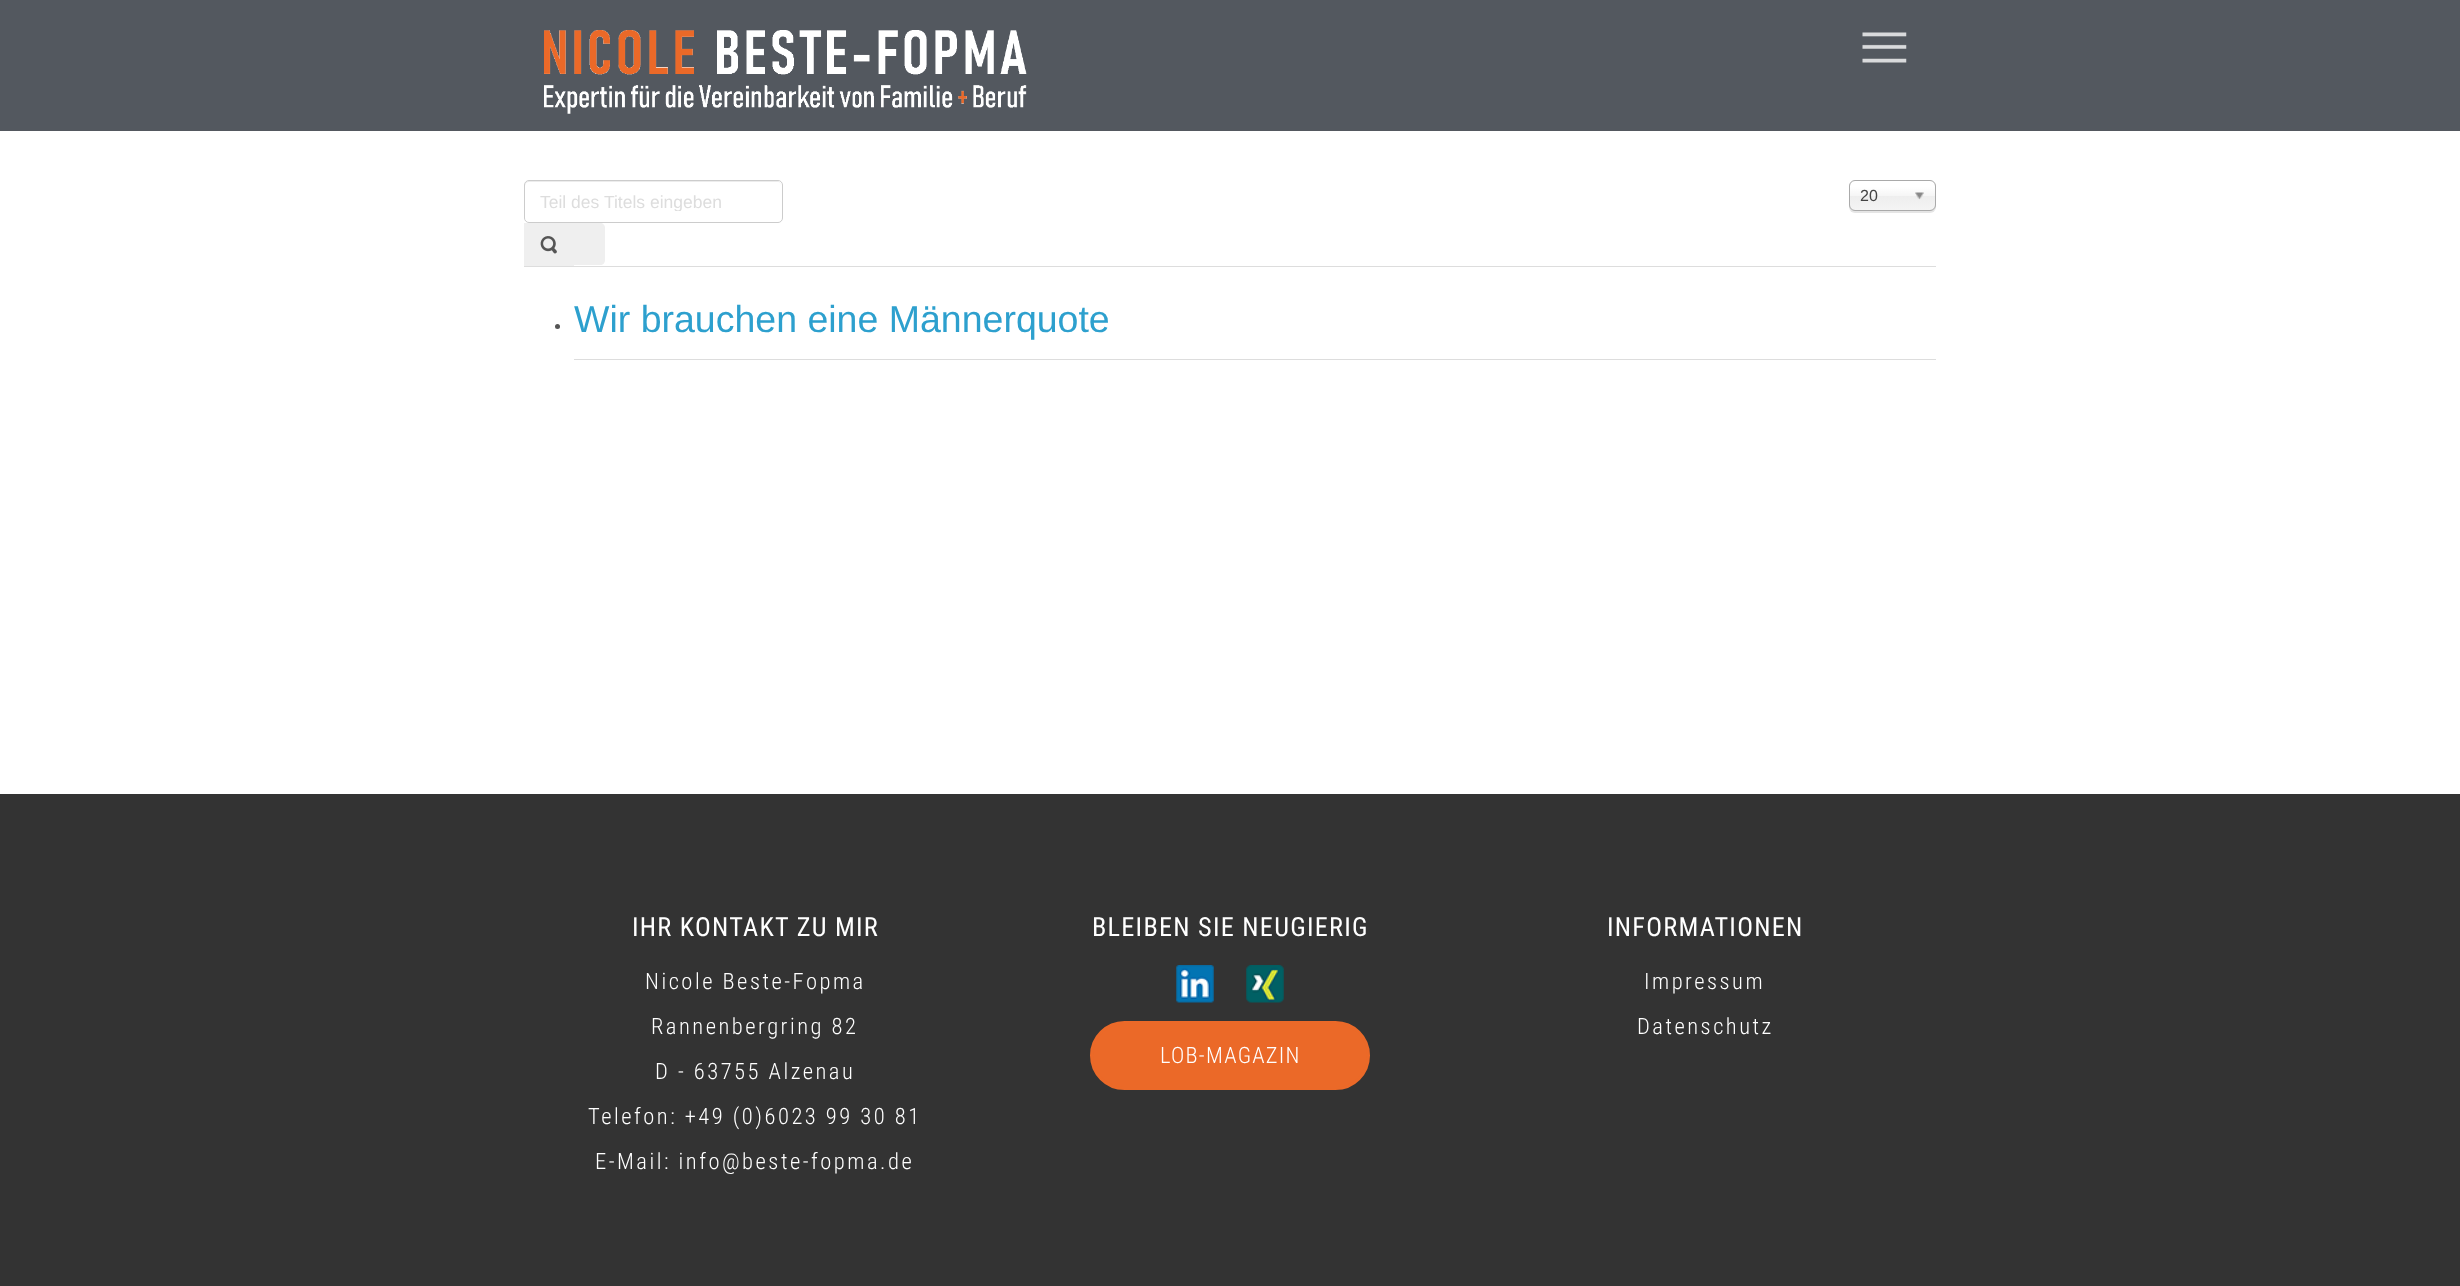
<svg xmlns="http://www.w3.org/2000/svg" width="2460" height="1286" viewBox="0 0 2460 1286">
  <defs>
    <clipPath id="clip1"><rect x="540" y="191" width="226" height="20"/></clipPath>
    <filter id="blur1" x="-50%" y="-200%" width="200%" height="500%"><feGaussianBlur stdDeviation="0.5"/></filter>
    <linearGradient id="g1" gradientUnits="userSpaceOnUse" x1="1893" y1="181" x2="1893" y2="210"><stop offset="0.2" stop-color="#ffffff"/><stop offset="0.5" stop-color="#f6f6f6"/><stop offset="0.52" stop-color="#eeeeee"/><stop offset="1" stop-color="#f4f4f4"/></linearGradient>
  </defs>
  <rect width="100%" height="100%" fill="#ffffff"/>
  <rect x="0" y="0" width="2460" height="131" fill="#53585f"/>
  <image x="544" y="30" width="483" height="84" href="img1.png"/>
  <image x="1862" y="32" width="45" height="31" href="img2.png"/>
  <path d="M529 182H778C780 182 781 184 781 186V185C781 183 779 181 777 181H529C527 181 525 183 525 185V186C525 184 527 182 529 182Z" fill="#ececec"/>
  <rect x="524.5" y="180.5" width="258" height="42" rx="4.5" fill="none" stroke="#cccccc"/>
  <g clip-path="url(#clip1)">
    <text x="540" y="208" font-family="Liberation Sans" font-size="17.5" fill="#dddddd">Teil des Titels eingeben</text>
  </g>
  <rect x="524" y="223" width="50" height="43" fill="#efefef"/>
  <image x="540" y="236" width="17" height="18" href="img3.png"/>
  <path d="M573 223H600C603 223 605 225 605 228V260C605 263 603 265 600 265H573Z" fill="#efefef"/>
  <rect x="1849" y="181" width="87" height="32" rx="6" fill="#000000" fill-opacity="0.1" filter="url(#blur1)"/>
  <rect x="1850" y="181" width="85" height="29" rx="5" fill="url(#g1)"/>
  <rect x="1849.5" y="180.5" width="86" height="30" rx="5.5" fill="none" stroke="#aaaaaa"/>
  <text x="1860" y="201" font-family="Liberation Sans" font-size="16" fill="#444444">20</text>
  <image x="1915" y="192" width="9" height="8" href="img4.png"/>
  <rect x="524" y="266" width="1412" height="1" fill="#dddddd"/>
  <rect x="574" y="359" width="1362" height="1" fill="#dddddd"/>
  <circle cx="557.5" cy="326.5" r="2.5" fill="#555555"/>
  <text x="574" y="332" font-family="Liberation Sans" font-size="37.5" fill="#2da0ce">Wir brauchen eine Männerquote</text>
  <rect x="0" y="794" width="2460" height="492" fill="#333333"/>
  <text x="632" y="936" font-family="Roboto Condensed" font-size="26.25" letter-spacing="1.25" fill="#ffffff">IHR KONTAKT ZU MIR</text>
  <text x="645" y="989" font-family="Roboto Condensed" font-size="22.5" font-weight="300" letter-spacing="2.5" fill="#ffffff">Nicole Beste-Fopma</text>
  <text x="651" y="1034" font-family="Roboto Condensed" font-size="22.5" font-weight="300" letter-spacing="2.5" fill="#ffffff">Rannenbergring 82</text>
  <text x="655" y="1079" font-family="Roboto Condensed" font-size="22.5" font-weight="300" letter-spacing="2.5" fill="#ffffff">D - 63755 Alzenau</text>
  <text x="588" y="1124" font-family="Roboto Condensed" font-size="22.5" font-weight="300" letter-spacing="2.5" fill="#ffffff">Telefon: +49 (0)6023 99 30 81</text>
  <text x="595" y="1169" font-family="Roboto Condensed" font-size="22.5" font-weight="300" letter-spacing="2.5" fill="#ffffff">E-Mail: info@beste-fopma.de</text>
  <text x="1092" y="936" font-family="Roboto Condensed" font-size="26.25" letter-spacing="1.25" fill="#ffffff">BLEIBEN SIE NEUGIERIG</text>
  <image x="1176" y="965" width="38" height="38" href="img5.png"/>
  <image x="1246" y="965" width="38" height="38" href="img6.png"/>
  <rect x="1091.5" y="1022.5" width="277" height="66" rx="33" fill="#eb6928" stroke="#eb6928" stroke-width="3"/>
  <text x="1160" y="1063" font-family="Roboto Condensed" font-size="22.5" font-weight="300" letter-spacing="1.25" fill="#ffffff">LOB-MAGAZIN</text>
  <text x="1607" y="936" font-family="Roboto Condensed" font-size="26.25" letter-spacing="1.25" fill="#ffffff">INFORMATIONEN</text>
  <text x="1644" y="989" font-family="Roboto Condensed" font-size="22.5" font-weight="300" letter-spacing="2.5" fill="#ffffff">Impressum</text>
  <text x="1637" y="1034" font-family="Roboto Condensed" font-size="22.5" font-weight="300" letter-spacing="2.5" fill="#ffffff">Datenschutz</text>
</svg>
